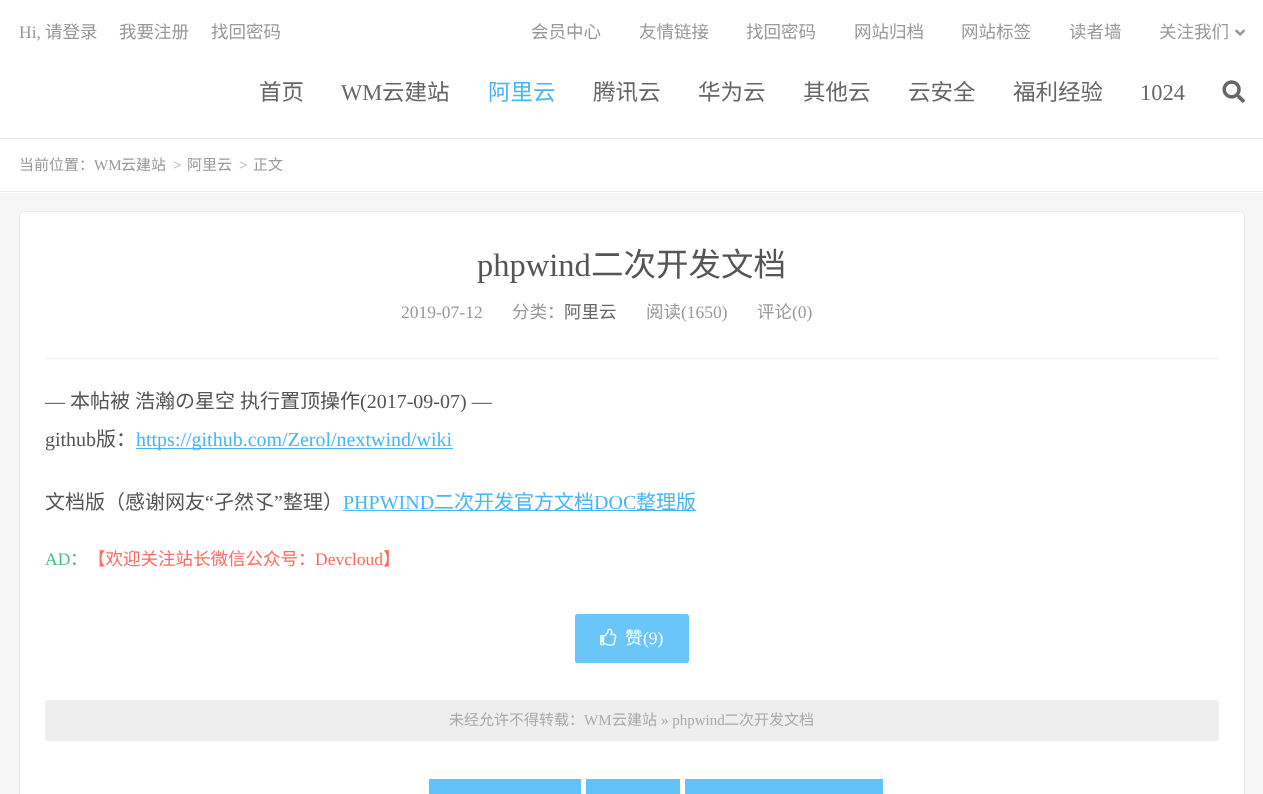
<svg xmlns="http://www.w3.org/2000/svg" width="1263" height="794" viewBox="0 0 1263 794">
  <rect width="100%" height="100%" fill="#f6f6f6"/>
  <rect x="0" y="0" width="1263" height="138" fill="#ffffff"/>
  <rect x="0" y="138" width="1263" height="1" fill="#ebebeb"/>
  <text x="19" y="38" font-family="Liberation Serif" font-size="17.5" fill="#999999">Hi,</text>
  <text x="45" y="38" font-family="Noto Sans CJK SC" font-size="17.5" fill="#999999">请登录</text>
  <text x="119" y="38" font-family="Noto Sans CJK SC" font-size="17.5" fill="#999999">我要注册</text>
  <text x="211" y="38" font-family="Noto Sans CJK SC" font-size="17.5" fill="#999999">找回密码</text>
  <text x="531" y="38" font-family="Noto Sans CJK SC" font-size="17.5" fill="#999999">会员中心</text>
  <text x="639" y="38" font-family="Noto Sans CJK SC" font-size="17.5" fill="#999999">友情链接</text>
  <text x="746" y="38" font-family="Noto Sans CJK SC" font-size="17.5" fill="#999999">找回密码</text>
  <text x="854" y="38" font-family="Noto Sans CJK SC" font-size="17.5" fill="#999999">网站归档</text>
  <text x="961" y="38" font-family="Noto Sans CJK SC" font-size="17.5" fill="#999999">网站标签</text>
  <text x="1069" y="38" font-family="Noto Sans CJK SC" font-size="17.5" fill="#999999">读者墙</text>
  <text x="1159" y="38" font-family="Noto Sans CJK SC" font-size="17.5" fill="#999999">关注我们</text>
  <image x="1235" y="29" width="11" height="7" href="img1.png"/>
  <text x="259" y="100" font-family="Noto Sans CJK SC" font-size="22.5" fill="#666666">首页</text>
  <text x="341" y="100" font-family="Liberation Serif" font-size="22.5" fill="#666666">WM</text>
  <text x="382" y="100" font-family="Noto Sans CJK SC" font-size="22.5" fill="#666666">云建站</text>
  <text x="488" y="100" font-family="Noto Sans CJK SC" font-size="22.5" fill="#45b6f7">阿里云</text>
  <text x="593" y="100" font-family="Noto Sans CJK SC" font-size="22.5" fill="#666666">腾讯云</text>
  <text x="698" y="100" font-family="Noto Sans CJK SC" font-size="22.5" fill="#666666">华为云</text>
  <text x="803" y="100" font-family="Noto Sans CJK SC" font-size="22.5" fill="#666666">其他云</text>
  <text x="908" y="100" font-family="Noto Sans CJK SC" font-size="22.5" fill="#666666">云安全</text>
  <text x="1013" y="100" font-family="Noto Sans CJK SC" font-size="22.5" fill="#666666">福利经验</text>
  <text x="1140" y="100" font-family="Liberation Serif" font-size="22.5" fill="#666666">1024</text>
  <image x="1222" y="80" width="23" height="23" href="img2.png"/>
  <rect x="0" y="139" width="1263" height="54" fill="#ffffff"/>
  <rect x="0" y="191" width="1263" height="1" fill="#ebebeb"/>
  <text x="19" y="170" font-family="Noto Sans CJK SC" font-size="15" fill="#999999">当前位置：</text>
  <text x="94" y="170" font-family="Liberation Serif" font-size="15" fill="#999999">WM</text>
  <text x="121" y="170" font-family="Noto Sans CJK SC" font-size="15" fill="#999999">云建站</text>
  <text x="173" y="170" font-family="Liberation Serif" font-size="15" font-weight="bold" fill="#bbbbbb">&gt;</text>
  <text x="187" y="170" font-family="Noto Sans CJK SC" font-size="15" fill="#999999">阿里云</text>
  <text x="239" y="170" font-family="Liberation Serif" font-size="15" font-weight="bold" fill="#bbbbbb">&gt;</text>
  <text x="253" y="170" font-family="Noto Sans CJK SC" font-size="15" fill="#999999">正文</text>
  <rect x="19.5" y="211.5" width="1225" height="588" rx="4.5" fill="#ffffff" stroke="#eaeaea"/>
  <rect x="45" y="358" width="1174" height="1" fill="#eeeeee"/>
  <text x="477" y="276" font-family="Liberation Serif" font-size="32.5" fill="#555555">phpwind</text>
  <text x="591" y="276" font-family="Noto Sans CJK SC" font-size="32.5" fill="#555555">二次开发文档</text>
  <text x="401" y="318" font-family="Liberation Serif" font-size="17.5" fill="#999999">2019-07-12</text>
  <text x="512" y="318" font-family="Noto Sans CJK SC" font-size="17.5" fill="#999999">分类：</text>
  <text x="564" y="318" font-family="Noto Sans CJK SC" font-size="17.5" fill="#666666">阿里云</text>
  <text x="646" y="318" font-family="Noto Sans CJK SC" font-size="17.5" fill="#999999">阅读</text>
  <text x="681" y="318" font-family="Liberation Serif" font-size="17.5" fill="#999999">(1650)</text>
  <text x="757" y="318" font-family="Noto Sans CJK SC" font-size="17.5" fill="#999999">评论</text>
  <text x="792" y="318" font-family="Liberation Serif" font-size="17.5" fill="#999999">(0)</text>
  <text x="45" y="408" font-family="Liberation Serif" font-size="20" fill="#555555">—</text>
  <text x="70" y="408" font-family="Noto Sans CJK SC" font-size="20" fill="#555555">本帖被</text>
  <text x="135" y="408" font-family="Noto Sans CJK SC" font-size="20" fill="#555555">浩瀚の星空</text>
  <text x="240" y="408" font-family="Noto Sans CJK SC" font-size="20" fill="#555555">执行置顶操作</text>
  <text x="360" y="408" font-family="Liberation Serif" font-size="20" fill="#555555">(2017-09-07) —</text>
  <text x="45" y="446" font-family="Liberation Serif" font-size="20" fill="#555555">github</text>
  <text x="96" y="446" font-family="Noto Sans CJK SC" font-size="20" fill="#555555">版：</text>
  <rect x="136" y="448" width="317" height="1" fill="#45b6f7"/>
  <text x="136" y="446" font-family="Liberation Serif" font-size="20" fill="#45b6f7">https://github.com/Zerol/nextwind/wiki</text>
  <text x="45" y="509" font-family="Noto Sans CJK SC" font-size="20" fill="#555555">文档版（感谢网友</text>
  <text x="205" y="509" font-family="Liberation Serif" font-size="20" fill="#555555">“</text>
  <text x="214" y="509" font-family="Noto Sans CJK SC" font-size="20" fill="#555555">孑然孓</text>
  <text x="274" y="509" font-family="Liberation Serif" font-size="20" fill="#555555">”</text>
  <text x="283" y="509" font-family="Noto Sans CJK SC" font-size="20" fill="#555555">整理）</text>
  <text x="343" y="509" font-family="Liberation Serif" font-size="20" fill="#45b6f7">PHPWIND</text>
  <rect x="343" y="510" width="353" height="1" fill="#45b6f7"/>
  <text x="434" y="509" font-family="Noto Sans CJK SC" font-size="20" fill="#45b6f7">二次开发官方文档</text>
  <text x="594" y="509" font-family="Liberation Serif" font-size="20" fill="#45b6f7">DOC</text>
  <text x="636" y="509" font-family="Noto Sans CJK SC" font-size="20" fill="#45b6f7">整理版</text>
  <text x="45" y="565" font-family="Liberation Serif" font-size="17.5" fill="#41c282">AD</text>
  <text x="70" y="565" font-family="Noto Sans CJK SC" font-size="17.5" fill="#41c282">：</text>
  <text x="88" y="565" font-family="Noto Sans CJK SC" font-size="17.5" fill="#fd6a5e">【欢迎关注站长微信公众号：</text>
  <text x="315" y="565" font-family="Liberation Serif" font-size="17.5" fill="#fd6a5e">Devcloud</text>
  <text x="383" y="565" font-family="Noto Sans CJK SC" font-size="17.5" fill="#fd6a5e">】</text>
  <rect x="575" y="614" width="114" height="49" rx="2.5" fill="#6ac5f9"/>
  <image x="600" y="628" width="17" height="18" href="img3.png"/>
  <text x="625" y="644" font-family="Noto Sans CJK SC" font-size="17.5" fill="#ffffff">赞</text>
  <text x="643" y="644" font-family="Liberation Serif" font-size="17.5" fill="#ffffff">(9)</text>
  <rect x="45" y="700" width="1174" height="41" rx="2.5" fill="#eeeeee"/>
  <text x="449" y="725" font-family="Noto Sans CJK SC" font-size="15" fill="#aaaaaa">未经允许不得转载：</text>
  <text x="584" y="725" font-family="Liberation Serif" font-size="15" fill="#aaaaaa">WM</text>
  <text x="612" y="725" font-family="Noto Sans CJK SC" font-size="15" fill="#aaaaaa">云建站</text>
  <text x="661" y="725" font-family="Liberation Serif" font-size="15" fill="#aaaaaa">» phpwind</text>
  <text x="724" y="725" font-family="Noto Sans CJK SC" font-size="15" fill="#aaaaaa">二次开发文档</text>
  <rect x="429" y="779" width="152" height="15" fill="#61c1f8"/>
  <rect x="586" y="779" width="94" height="15" fill="#61c1f8"/>
  <rect x="685" y="779" width="198" height="15" fill="#61c1f8"/>
</svg>
